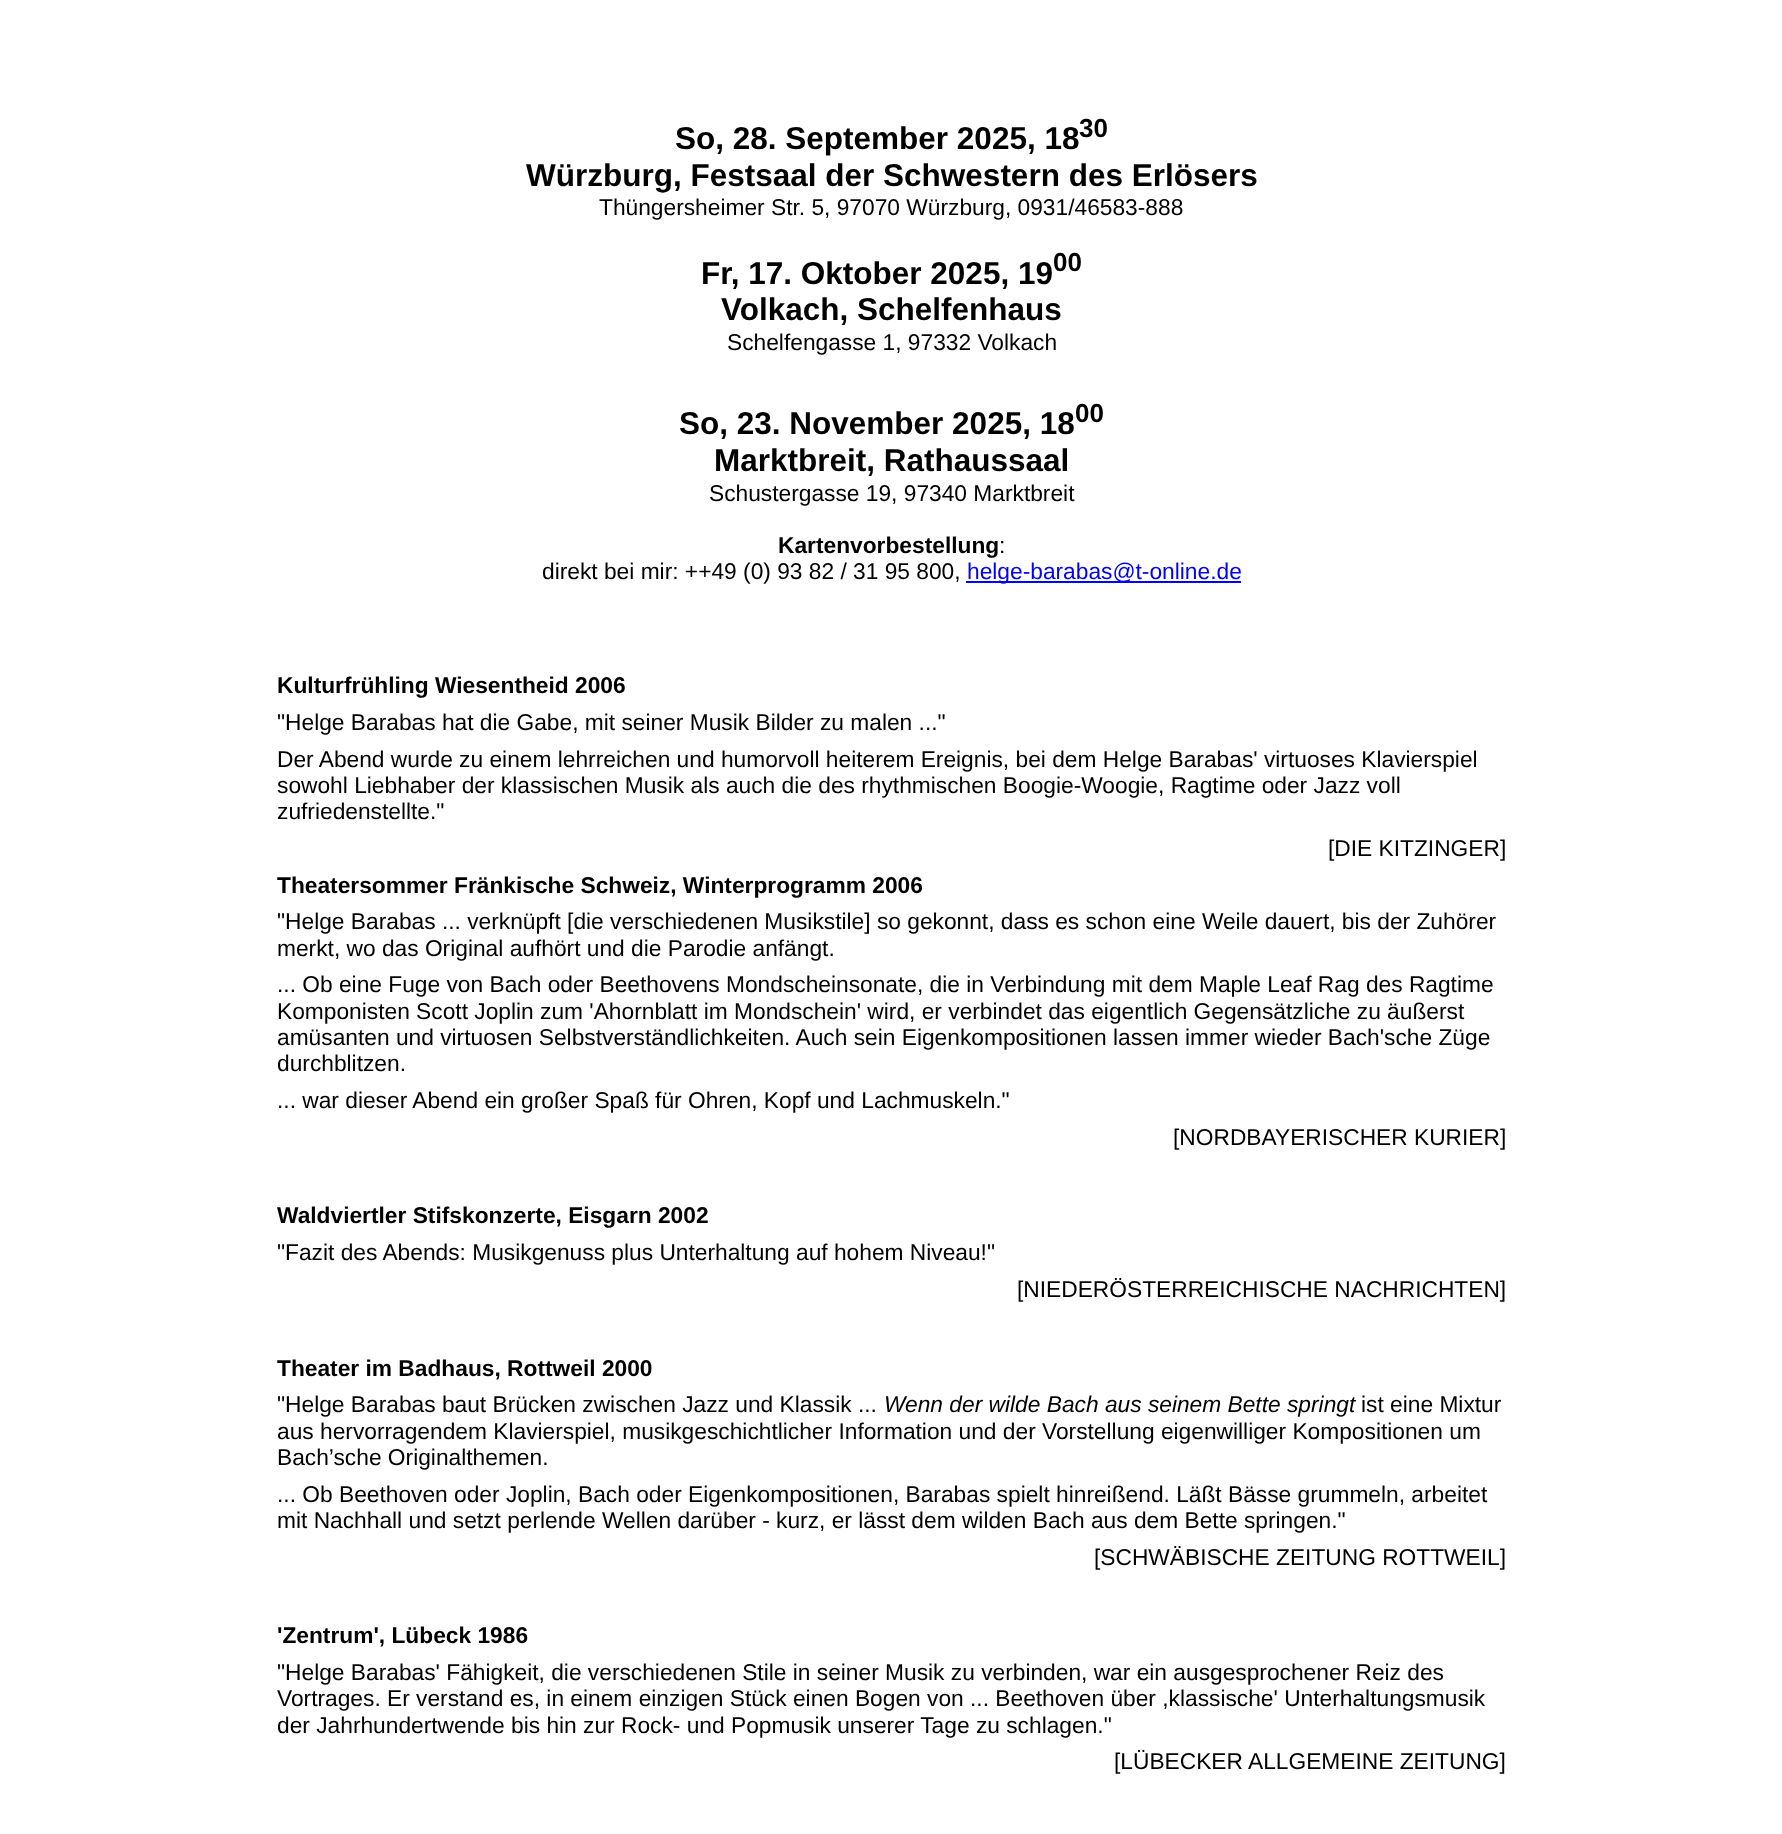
<svg xmlns="http://www.w3.org/2000/svg" width="1782" height="1834" viewBox="0 0 1782 1834">
  <rect width="100%" height="100%" fill="#ffffff"/>
  <text x="675" y="149" font-family="Liberation Sans" font-size="31.5" font-weight="bold" fill="#000000">So, 28. September 2025, 18</text>
  <text x="1079" y="137" font-family="Liberation Sans" font-size="26" font-weight="bold" fill="#000000">30</text>
  <text x="526" y="186" font-family="Liberation Sans" font-size="31.5" font-weight="bold" fill="#000000">Würzburg, Festsaal der Schwestern des Erlösers</text>
  <text x="599" y="215" font-family="Liberation Sans" font-size="22.75" fill="#000000">Thüngersheimer Str. 5, 97070 Würzburg, 0931/46583-888</text>
  <text x="701" y="284" font-family="Liberation Sans" font-size="31.5" font-weight="bold" fill="#000000">Fr, 17. Oktober 2025, 19</text>
  <text x="1053" y="271" font-family="Liberation Sans" font-size="26" font-weight="bold" fill="#000000">00</text>
  <text x="721" y="320" font-family="Liberation Sans" font-size="31.5" font-weight="bold" fill="#000000">Volkach, Schelfenhaus</text>
  <text x="727" y="350" font-family="Liberation Sans" font-size="22.75" fill="#000000">Schelfengasse 1, 97332 Volkach</text>
  <text x="679" y="434" font-family="Liberation Sans" font-size="31.5" font-weight="bold" fill="#000000">So, 23. November 2025, 18</text>
  <text x="1075" y="422" font-family="Liberation Sans" font-size="26" font-weight="bold" fill="#000000">00</text>
  <text x="714" y="471" font-family="Liberation Sans" font-size="31.5" font-weight="bold" fill="#000000">Marktbreit, Rathaussaal</text>
  <text x="709" y="501" font-family="Liberation Sans" font-size="22.75" fill="#000000">Schustergasse 19, 97340 Marktbreit</text>
  <text x="778" y="553" font-family="Liberation Sans" font-size="22.75" font-weight="bold" fill="#000000">Kartenvorbestellung</text>
  <text x="999" y="553" font-family="Liberation Sans" font-size="22.75" fill="#000000">:</text>
  <text x="542" y="579" font-family="Liberation Sans" font-size="22.75" fill="#000000">direkt bei mir: ++49 (0) 93 82 / 31 95 800,</text>
  <rect x="966" y="581" width="275" height="2" fill="#0000ff"/>
  <text x="967" y="579" font-family="Liberation Sans" font-size="22.75" fill="#0000ff">helge-barabas@t-online.de</text>
  <text x="277" y="693" font-family="Liberation Sans" font-size="22.75" font-weight="bold" fill="#000000">Kulturfrühling Wiesentheid 2006</text>
  <text x="277" y="730" font-family="Liberation Sans" font-size="22.75" fill="#000000">"Helge Barabas hat die Gabe, mit seiner Musik Bilder zu malen ..."</text>
  <text x="277" y="767" font-family="Liberation Sans" font-size="22.75" fill="#000000">Der Abend wurde zu einem lehrreichen und humorvoll heiterem Ereignis, bei dem Helge Barabas' virtuoses Klavierspiel</text>
  <text x="277" y="793" font-family="Liberation Sans" font-size="22.75" fill="#000000">sowohl Liebhaber der klassischen Musik als auch die des rhythmischen Boogie-Woogie, Ragtime oder Jazz voll</text>
  <text x="277" y="819" font-family="Liberation Sans" font-size="22.75" fill="#000000">zufriedenstellte."</text>
  <text x="1328" y="856" font-family="Liberation Sans" font-size="22.75" fill="#000000">[DIE KITZINGER]</text>
  <text x="277" y="893" font-family="Liberation Sans" font-size="22.75" font-weight="bold" fill="#000000">Theatersommer Fränkische Schweiz, Winterprogramm 2006</text>
  <text x="277" y="929" font-family="Liberation Sans" font-size="22.75" fill="#000000">"Helge Barabas ... verknüpft [die verschiedenen Musikstile] so gekonnt, dass es schon eine Weile dauert, bis der Zuhörer</text>
  <text x="277" y="956" font-family="Liberation Sans" font-size="22.75" fill="#000000">merkt, wo das Original aufhört und die Parodie anfängt.</text>
  <text x="277" y="992" font-family="Liberation Sans" font-size="22.75" fill="#000000">... Ob eine Fuge von Bach oder Beethovens Mondscheinsonate, die in Verbindung mit dem Maple Leaf Rag des Ragtime</text>
  <text x="277" y="1019" font-family="Liberation Sans" font-size="22.75" fill="#000000">Komponisten Scott Joplin zum 'Ahornblatt im Mondschein' wird, er verbindet das eigentlich Gegensätzliche zu äußerst</text>
  <text x="277" y="1045" font-family="Liberation Sans" font-size="22.75" fill="#000000">amüsanten und virtuosen Selbstverständlichkeiten. Auch sein Eigenkompositionen lassen immer wieder Bach'sche Züge</text>
  <text x="277" y="1071" font-family="Liberation Sans" font-size="22.75" fill="#000000">durchblitzen.</text>
  <text x="277" y="1108" font-family="Liberation Sans" font-size="22.75" fill="#000000">... war dieser Abend ein großer Spaß für Ohren, Kopf und Lachmuskeln."</text>
  <text x="1173" y="1145" font-family="Liberation Sans" font-size="22.75" fill="#000000">[NORDBAYERISCHER KURIER]</text>
  <text x="277" y="1223" font-family="Liberation Sans" font-size="22.75" font-weight="bold" fill="#000000">Waldviertler Stifskonzerte, Eisgarn 2002</text>
  <text x="277" y="1260" font-family="Liberation Sans" font-size="22.75" fill="#000000">"Fazit des Abends: Musikgenuss plus Unterhaltung auf hohem Niveau!"</text>
  <text x="1017" y="1297" font-family="Liberation Sans" font-size="22.75" fill="#000000">[NIEDERÖSTERREICHISCHE NACHRICHTEN]</text>
  <text x="277" y="1376" font-family="Liberation Sans" font-size="22.75" font-weight="bold" fill="#000000">Theater im Badhaus, Rottweil 2000</text>
  <text x="277" y="1412" font-family="Liberation Sans" font-size="22.75" fill="#000000">"Helge Barabas baut Brücken zwischen Jazz und Klassik ...</text>
  <text x="884" y="1412" font-family="Liberation Sans" font-size="22.75" font-style="italic" fill="#000000">Wenn der wilde Bach aus seinem Bette springt</text>
  <text x="1361" y="1412" font-family="Liberation Sans" font-size="22.75" fill="#000000">ist eine Mixtur</text>
  <text x="277" y="1439" font-family="Liberation Sans" font-size="22.75" fill="#000000">aus hervorragendem Klavierspiel, musikgeschichtlicher Information und der Vorstellung eigenwilliger Kompositionen um</text>
  <text x="277" y="1465" font-family="Liberation Sans" font-size="22.75" fill="#000000">Bach’sche Originalthemen.</text>
  <text x="277" y="1502" font-family="Liberation Sans" font-size="22.75" fill="#000000">... Ob Beethoven oder Joplin, Bach oder Eigenkompositionen, Barabas spielt hinreißend. Läßt Bässe grummeln, arbeitet</text>
  <text x="277" y="1528" font-family="Liberation Sans" font-size="22.75" fill="#000000">mit Nachhall und setzt perlende Wellen darüber - kurz, er lässt dem wilden Bach aus dem Bette springen."</text>
  <text x="1094" y="1565" font-family="Liberation Sans" font-size="22.75" fill="#000000">[SCHWÄBISCHE ZEITUNG ROTTWEIL]</text>
  <text x="277" y="1643" font-family="Liberation Sans" font-size="22.75" font-weight="bold" fill="#000000">'Zentrum', Lübeck 1986</text>
  <text x="277" y="1680" font-family="Liberation Sans" font-size="22.75" fill="#000000">"Helge Barabas' Fähigkeit, die verschiedenen Stile in seiner Musik zu verbinden, war ein ausgesprochener Reiz des</text>
  <text x="277" y="1706" font-family="Liberation Sans" font-size="22.75" fill="#000000">Vortrages. Er verstand es, in einem einzigen Stück einen Bogen von ... Beethoven über ,klassische' Unterhaltungsmusik</text>
  <text x="277" y="1733" font-family="Liberation Sans" font-size="22.75" fill="#000000">der Jahrhundertwende bis hin zur Rock- und Popmusik unserer Tage zu schlagen."</text>
  <text x="1114" y="1769" font-family="Liberation Sans" font-size="22.75" fill="#000000">[LÜBECKER</text>
  <text x="1248" y="1769" font-family="Liberation Sans" font-size="22.75" fill="#000000">ALLGEMEINE ZEITUNG]</text>
</svg>
